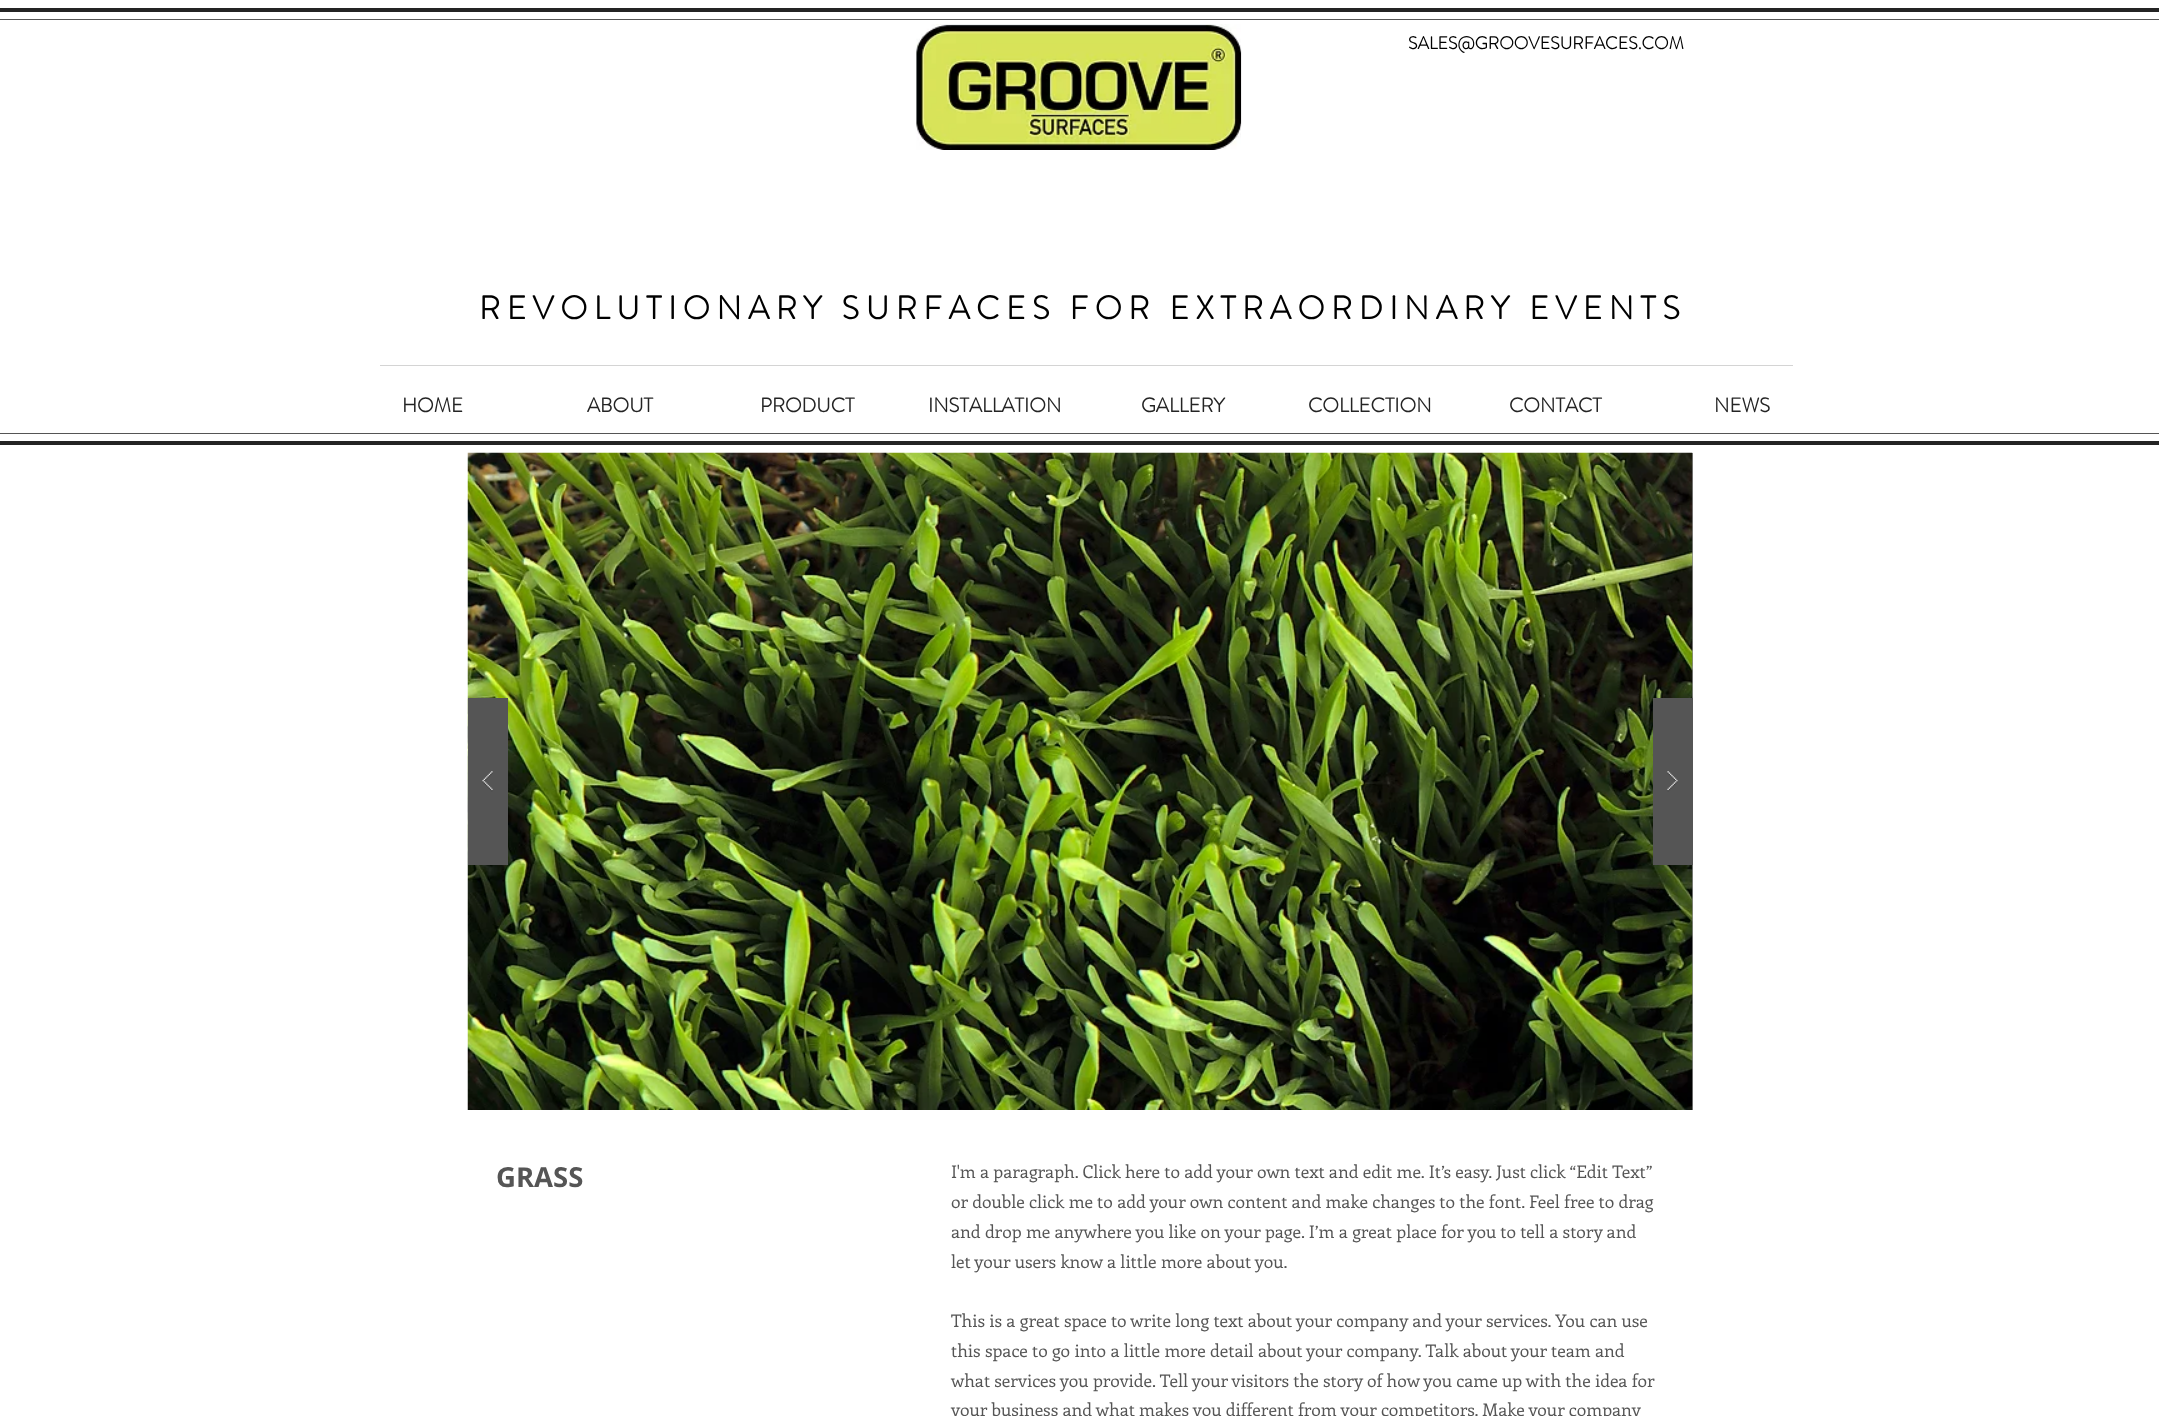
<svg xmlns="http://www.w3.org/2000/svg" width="2159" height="1416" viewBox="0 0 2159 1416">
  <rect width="100%" height="100%" fill="#ffffff"/>
  <rect x="0" y="8" width="2159" height="4" fill="#242424"/>
  <rect x="0" y="441" width="2159" height="4" fill="#242424"/>
  <rect x="0" y="19" width="2159" height="1" fill="#555555"/>
  <rect x="0" y="433" width="2159" height="1" fill="#555555"/>
  <image x="916" y="24" width="326" height="126" href="img1.png"/>
  <text x="1408" y="49" font-family="'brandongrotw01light'" font-size="17.5" font-weight="bold" fill="#000000">SALES@GROOVESURFACES.COM</text>
  <text x="479" y="319" font-family="'brandongrotw01light'" font-size="32.5" font-weight="bold" letter-spacing="6.5" fill="#000000">REVOLUTIONARY SURFACES FOR EXTRAORDINARY EVENTS</text>
  <rect x="380" y="365" width="1413" height="1" fill="#d4d4d4"/>
  <text x="402" y="412" font-family="'brandongrotw01light'" font-size="20" font-weight="bold" fill="#242424">HOME</text>
  <text x="587" y="412" font-family="'brandongrotw01light'" font-size="20" font-weight="bold" fill="#242424">ABOUT</text>
  <text x="760" y="412" font-family="'brandongrotw01light'" font-size="20" font-weight="bold" fill="#242424">PRODUCT</text>
  <text x="928" y="412" font-family="'brandongrotw01light'" font-size="20" font-weight="bold" fill="#242424">INSTALLATION</text>
  <text x="1141" y="412" font-family="'brandongrotw01light'" font-size="20" font-weight="bold" fill="#242424">GALLERY</text>
  <text x="1308" y="412" font-family="'brandongrotw01light'" font-size="20" font-weight="bold" fill="#242424">COLLECTION</text>
  <text x="1509" y="412" font-family="'brandongrotw01light'" font-size="20" font-weight="bold" fill="#242424">CONTACT</text>
  <text x="1714" y="412" font-family="'brandongrotw01light'" font-size="20" font-weight="bold" fill="#242424">NEWS</text>
  <rect x="1692" y="453" width="1" height="657" fill="#8b8b8b"/>
  <image x="467" y="452" width="1226" height="658" href="img2.png"/>
  <rect x="468" y="698" width="40" height="167" fill="#555555"/>
  <image x="482" y="771" width="11" height="21" href="img3.png"/>
  <rect x="1653" y="698" width="40" height="167" fill="#555555"/>
  <image x="1667" y="771" width="11" height="21" href="img4.png"/>
  <text x="496" y="1187" font-family="Open Sans" font-size="27.5" font-weight="bold" fill="#555555">GRASS</text>
  <text x="951" y="1178" font-family="Enriqueta" font-size="17.5" fill="#555555">I'm a paragraph. Click here to add your own text and edit me. It’s easy. Just click “Edit Text”</text>
  <text x="951" y="1208" font-family="Enriqueta" font-size="17.5" fill="#555555">or double click me to add your own content and make changes to the font. Feel free to drag</text>
  <text x="951" y="1238" font-family="Enriqueta" font-size="17.5" fill="#555555">and drop me anywhere you like on your page. I’m a great place for you to tell a story and</text>
  <text x="951" y="1268" font-family="Enriqueta" font-size="17.5" fill="#555555">let your users know a little more about you.</text>
  <text x="951" y="1327" font-family="Enriqueta" font-size="17.5" fill="#555555">This is a great space to write long text about your company and your services. You can use</text>
  <text x="951" y="1357" font-family="Enriqueta" font-size="17.5" fill="#555555">this space to go into a little more detail about your company. Talk about your team and</text>
  <text x="951" y="1387" font-family="Enriqueta" font-size="17.5" fill="#555555">what services you provide. Tell your visitors the story of how you came up with the idea for</text>
  <text x="951" y="1416" font-family="Enriqueta" font-size="17.5" fill="#555555">your business and what makes you different from your competitors. Make your company</text>
</svg>
